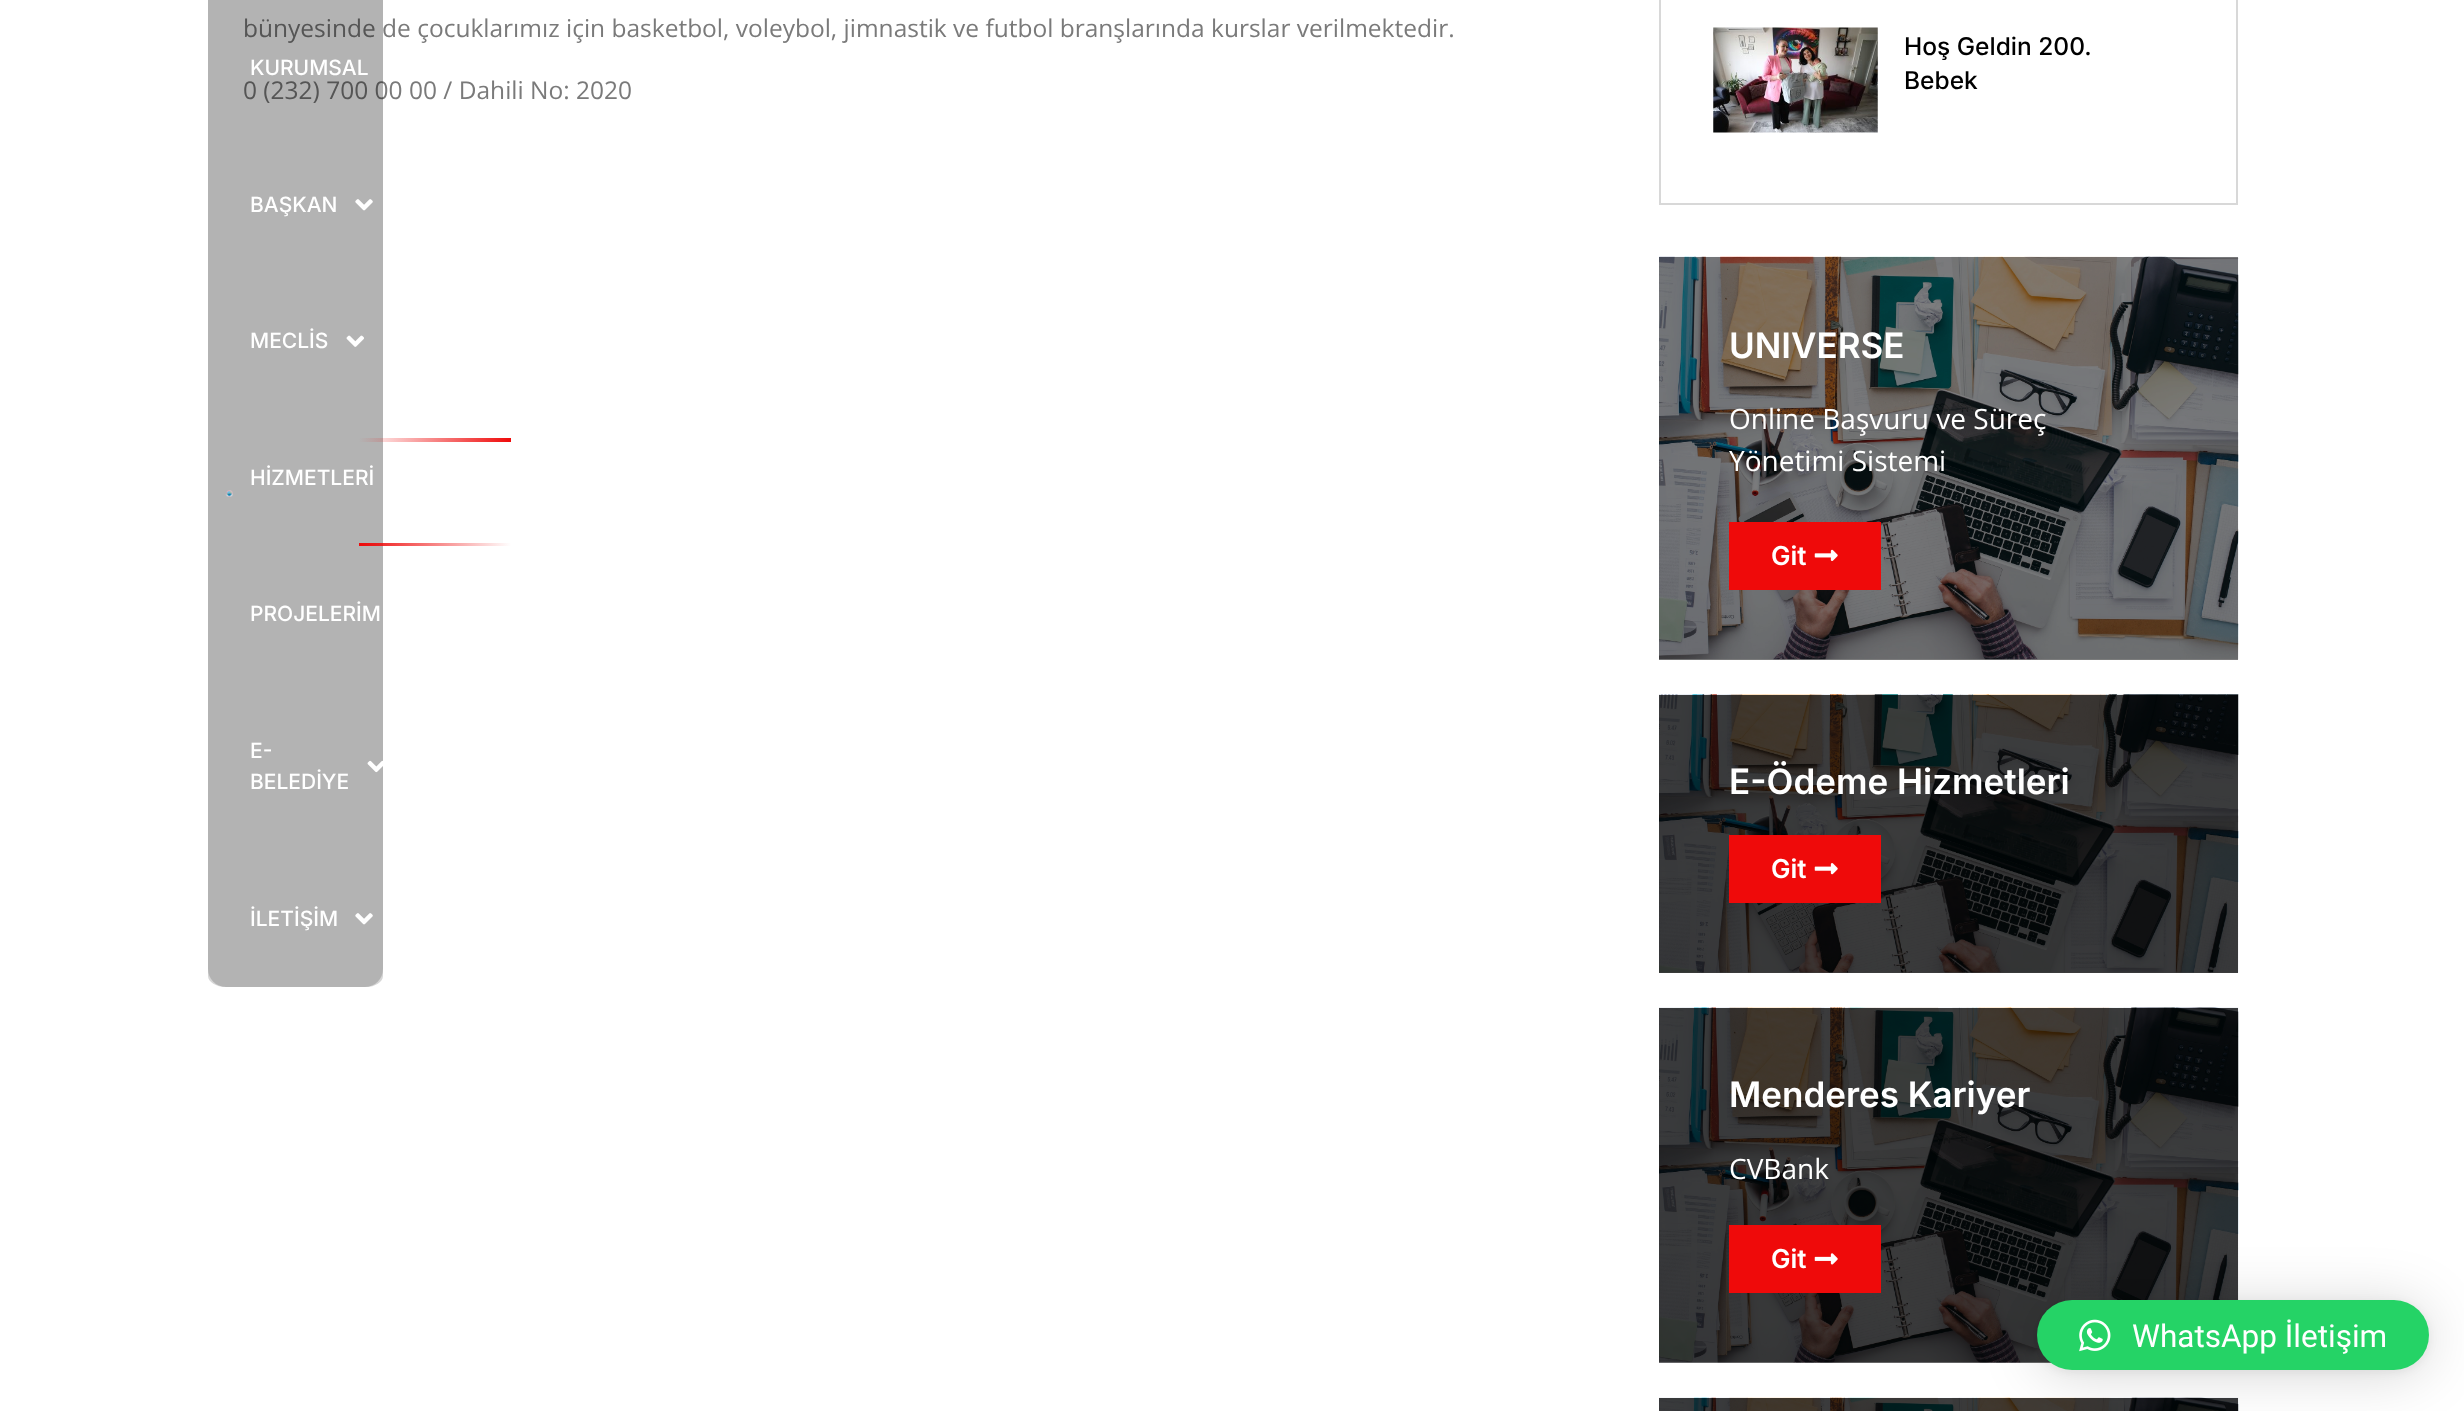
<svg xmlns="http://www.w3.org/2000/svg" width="2464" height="1411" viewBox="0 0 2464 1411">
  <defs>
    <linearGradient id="g1" gradientUnits="userSpaceOnUse" x1="359" y1="439" x2="511" y2="439"><stop offset="0" stop-color="#ef0a0a" stop-opacity="0"/><stop offset="1" stop-color="#ef0a0a"/></linearGradient>
    <linearGradient id="g2" gradientUnits="userSpaceOnUse" x1="511" y1="544" x2="359" y2="544"><stop offset="0" stop-color="#ef0a0a" stop-opacity="0"/><stop offset="1" stop-color="#ef0a0a"/></linearGradient>
    <filter id="blur1" x="-50%" y="-200%" width="200%" height="500%"><feGaussianBlur stdDeviation="28"/></filter>
    <filter id="blur2" x="-50%" y="-200%" width="200%" height="500%"><feGaussianBlur stdDeviation="5"/></filter>
  </defs>
  <rect width="100%" height="100%" fill="#ffffff"/>
  <rect x="1659" y="972" width="579" height="1" fill="#404040"/>
  <rect x="1659" y="659" width="579" height="1" fill="#808080"/>
  <text x="243" y="37" font-family="Open Sans" font-size="24.5" fill="#7a7a7a">bünyesinde de çocuklarımız için basketbol, voleybol, jimnastik ve futbol branşlarında kurslar verilmektedir.</text>
  <text x="243" y="99" font-family="Open Sans" font-size="24.5" fill="#7a7a7a">0 (232) 700 00 00 / Dahili No: 2020</text>
  <rect x="1660" y="-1" width="577" height="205" fill="none" stroke="#d8d8d8" stroke-width="2"/>
  <image x="1713" y="27" width="165" height="106" href="img1.png"/>
  <text x="1904" y="55" font-family="Inter" font-size="24.5" font-weight="500" fill="#000000">Hoş Geldin 200.</text>
  <text x="1904" y="89" font-family="Inter" font-size="24.5" font-weight="500" fill="#000000">Bebek</text>
  <image x="1659" y="256" width="580" height="404" href="img2.png"/>
  <text x="1729" y="358" font-family="Inter" font-size="35" font-weight="600" fill="#ffffff">UNIVERSE</text>
  <text x="1729" y="429" font-family="Open Sans" font-size="28" fill="#ffffff">Online Başvuru ve Süreç</text>
  <text x="1729" y="471" font-family="Open Sans" font-size="28" fill="#ffffff">Yönetimi Sistemi</text>
  <rect x="1729" y="522" width="152" height="68" fill="#ef0a0a"/>
  <text x="1771" y="565" font-family="Inter" font-size="26" font-weight="600" fill="#ffffff">Git</text>
  <image x="1814" y="549" width="24" height="12" href="img3.png"/>
  <image x="1659" y="694" width="580" height="279" href="img4.png"/>
  <text x="1729" y="794" font-family="Inter" font-size="35" font-weight="600" fill="#ffffff">E-Ödeme Hizmetleri</text>
  <rect x="1729" y="835" width="152" height="68" fill="#ef0a0a"/>
  <text x="1771" y="878" font-family="Inter" font-size="26" font-weight="600" fill="#ffffff">Git</text>
  <image x="1814" y="863" width="24" height="12" href="img5.png"/>
  <image x="1659" y="1007" width="580" height="356" href="img6.png"/>
  <text x="1729" y="1107" font-family="Inter" font-size="35" font-weight="600" fill="#ffffff">Menderes Kariyer</text>
  <text x="1729" y="1179" font-family="Open Sans" font-size="28" fill="#ffffff">CVBank</text>
  <rect x="1729" y="1225" width="152" height="68" fill="#ef0a0a"/>
  <text x="1771" y="1268" font-family="Inter" font-size="26" font-weight="600" fill="#ffffff">Git</text>
  <image x="1814" y="1253" width="24" height="12" href="img7.png"/>
  <image x="1659" y="1397" width="580" height="14" href="img8.png"/>
  <path d="M208 0H383V976C383 982 375 987 366 987H226C216 987 208 982 208 976Z" fill="#000000" fill-opacity="0.16"/>
  <path d="M208 0H383V969C383 979 375 987 365 987H226C216 987 208 979 208 969Z" fill="#000000" fill-opacity="0.16"/>
  <image x="225" y="490" width="8" height="7" href="img9.png"/>
  <text x="250" y="75" font-family="Inter" font-size="21" font-weight="500" fill="#ffffff">KURUMSAL</text>
  <text x="250" y="212" font-family="Inter" font-size="21" font-weight="500" fill="#ffffff">BAŞKAN</text>
  <image x="355" y="199" width="18" height="12" href="img10.png"/>
  <text x="250" y="348" font-family="Inter" font-size="21" font-weight="500" fill="#ffffff">MECLİS</text>
  <image x="346" y="335" width="18" height="12" href="img11.png"/>
  <text x="250" y="485" font-family="Inter" font-size="21" font-weight="500" fill="#ffffff">HİZMETLERİ</text>
  <text x="250" y="621" font-family="Inter" font-size="21" font-weight="500" fill="#ffffff">PROJELERİM</text>
  <text x="250" y="758" font-family="Inter" font-size="21" font-weight="500" fill="#ffffff">E-</text>
  <text x="250" y="789" font-family="Inter" font-size="21" font-weight="500" fill="#ffffff">BELEDİYE</text>
  <image x="367" y="760" width="16" height="13" href="img12.png"/>
  <text x="250" y="926" font-family="Inter" font-size="21" font-weight="500" fill="#ffffff">İLETİŞİM</text>
  <image x="355" y="913" width="18" height="12" href="img10.png"/>
  <rect x="359" y="438" width="152" height="4" fill="url(#g1)"/>
  <rect x="359" y="543" width="152" height="3" fill="url(#g2)"/>
  <rect x="2037" y="1304" width="392" height="70" rx="35" fill="#000000" fill-opacity="0.16" filter="url(#blur1)"/>
  <rect x="2037" y="1302" width="392" height="70" rx="35" fill="#000000" fill-opacity="0.06" filter="url(#blur2)"/>
  <rect x="2037" y="1300" width="392" height="70" rx="35" fill="#25d366"/>
  <image x="2079" y="1319" width="32" height="33" href="img13.png"/>
  <text x="2132" y="1347" font-family="Roboto" font-size="31.5" fill="#ffffff">WhatsApp İletişim</text>
</svg>
